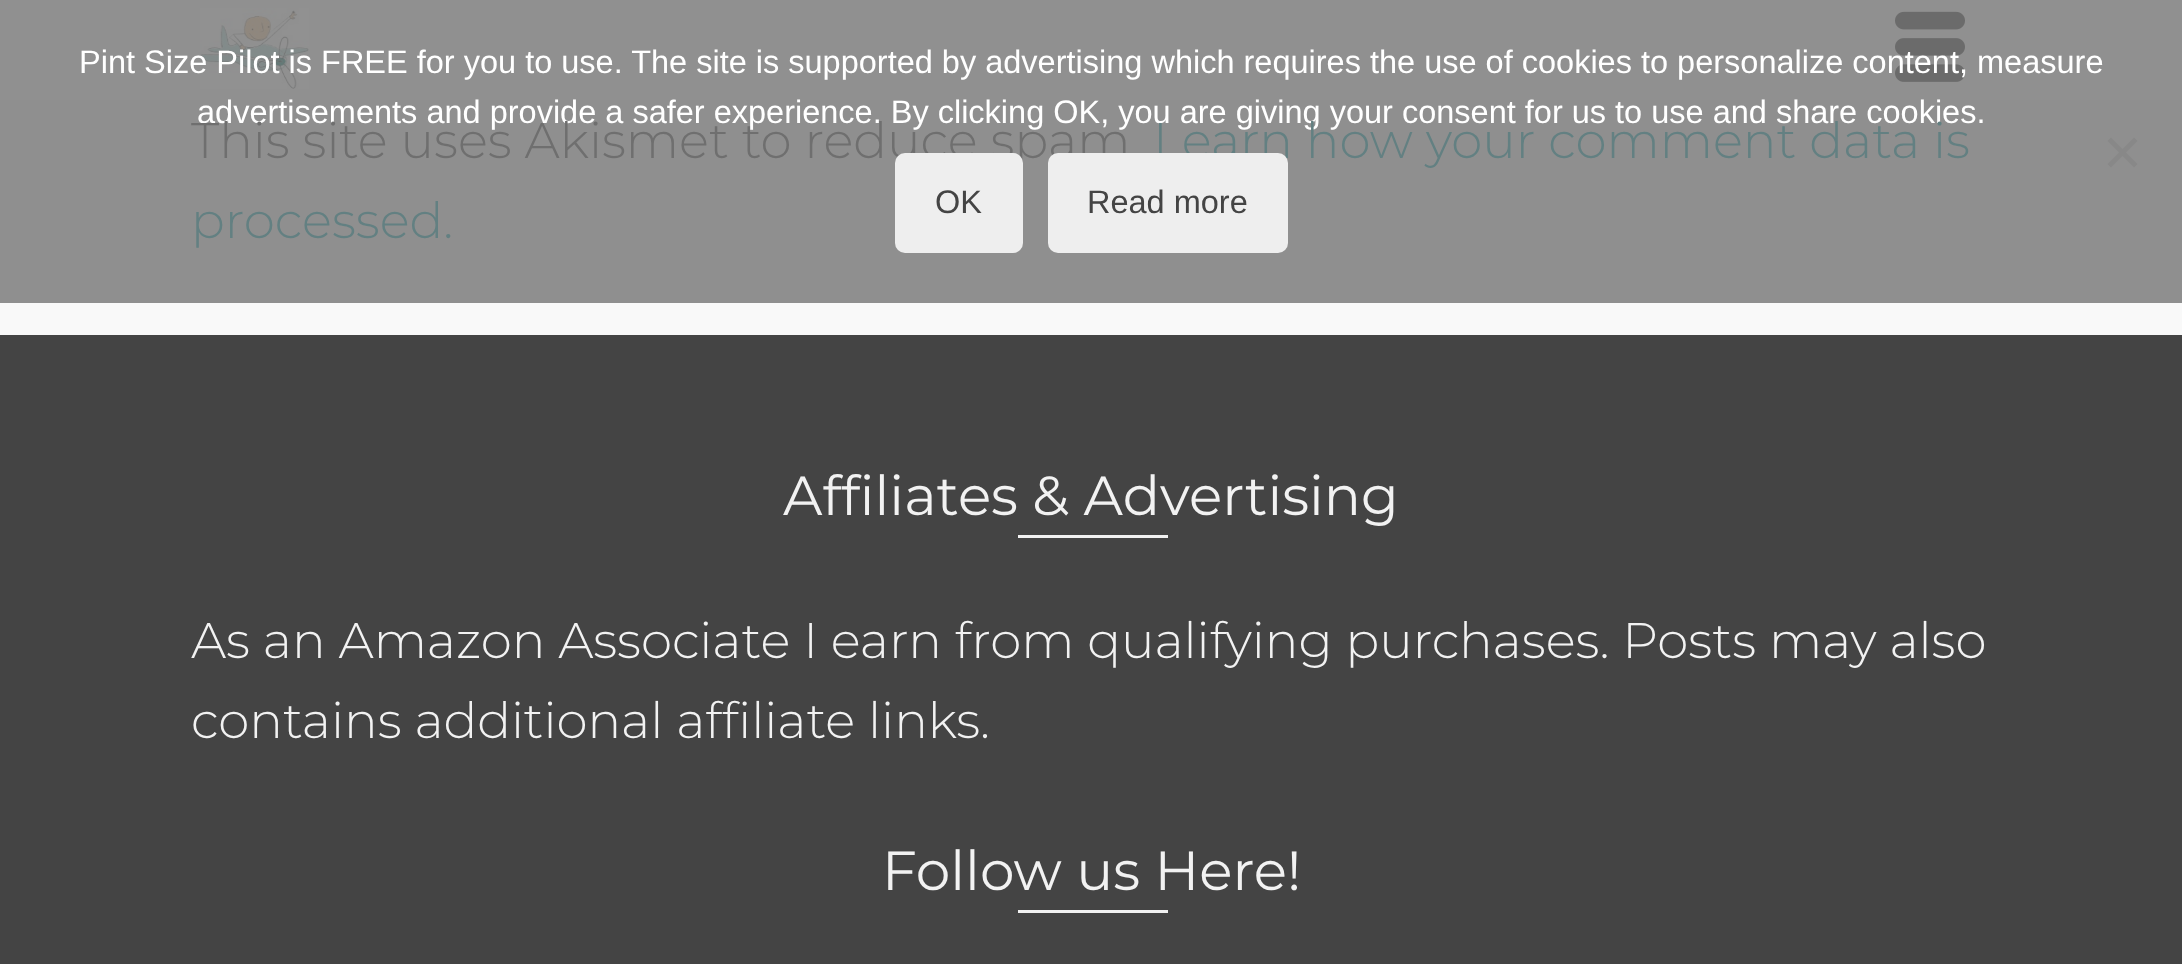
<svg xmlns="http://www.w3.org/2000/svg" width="2182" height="964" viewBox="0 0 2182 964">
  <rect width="100%" height="100%" fill="#f9f9f9"/>
  <rect x="0" y="0" width="2182" height="100" fill="#909090"/>
  <image x="200" y="8" width="109" height="81" href="img1.png"/>
  <image x="1895" y="11" width="70" height="71" href="img2.png"/>
  <text x="79" y="73" font-family="Liberation Sans" font-size="32.5" fill="#ffffff">Pint Size Pilot is FREE for you to use. The site is supported by advertising which requires the use of cookies to personalize content, measure</text>
  <rect x="0" y="100" width="2182" height="203" fill="#8f8f8f"/>
  <text x="197" y="123" font-family="Liberation Sans" font-size="32.5" fill="#ffffff">advertisements and provide a safer experience. By clicking OK, you are giving your consent for us to use and share cookies.</text>
  <path d="M2134 137.5L2137.5 141L2111 167.5L2107.5 164Z" fill="#888888"/>
  <path d="M2107.5 141L2111 137.5L2137.5 164L2134 167.5Z" fill="#888888"/>
  <text x="191" y="158" font-family="Montserrat" font-size="50" font-weight="300" fill="#6f6f6f">This site uses Akismet to reduce spam</text>
  <rect x="895" y="153" width="128" height="100" rx="10" fill="#eeeeee"/>
  <text x="935" y="213" font-family="Liberation Sans" font-size="32.5" fill="#444444">OK</text>
  <text x="1153" y="158" font-family="Montserrat" font-size="50" font-weight="300" fill="#638082">Learn how your comment data is</text>
  <rect x="1048" y="153" width="240" height="100" rx="10" fill="#eeeeee"/>
  <text x="1087" y="213" font-family="Liberation Sans" font-size="32.5" fill="#444444">Read more</text>
  <text x="191" y="238" font-family="Montserrat" font-size="50" font-weight="300" fill="#638082">processed.</text>
  <rect x="0" y="335" width="2182" height="629" fill="#444444"/>
  <text x="783" y="515" font-family="Montserrat" font-size="55" fill="#f2f2f2">Affiliates &amp; Advertising</text>
  <rect x="1018" y="535" width="150" height="3" fill="#f2f2f2"/>
  <text x="191" y="658" font-family="Montserrat" font-size="50" font-weight="300" fill="#f2f2f2">As an Amazon Associate I earn from qualifying purchases. Posts may also</text>
  <text x="191" y="738" font-family="Montserrat" font-size="50" font-weight="300" fill="#f2f2f2">contains additional affiliate links.</text>
  <text x="882" y="890" font-family="Montserrat" font-size="55" fill="#f2f2f2">Follow us Here!</text>
  <rect x="1018" y="910" width="150" height="3" fill="#f2f2f2"/>
</svg>
